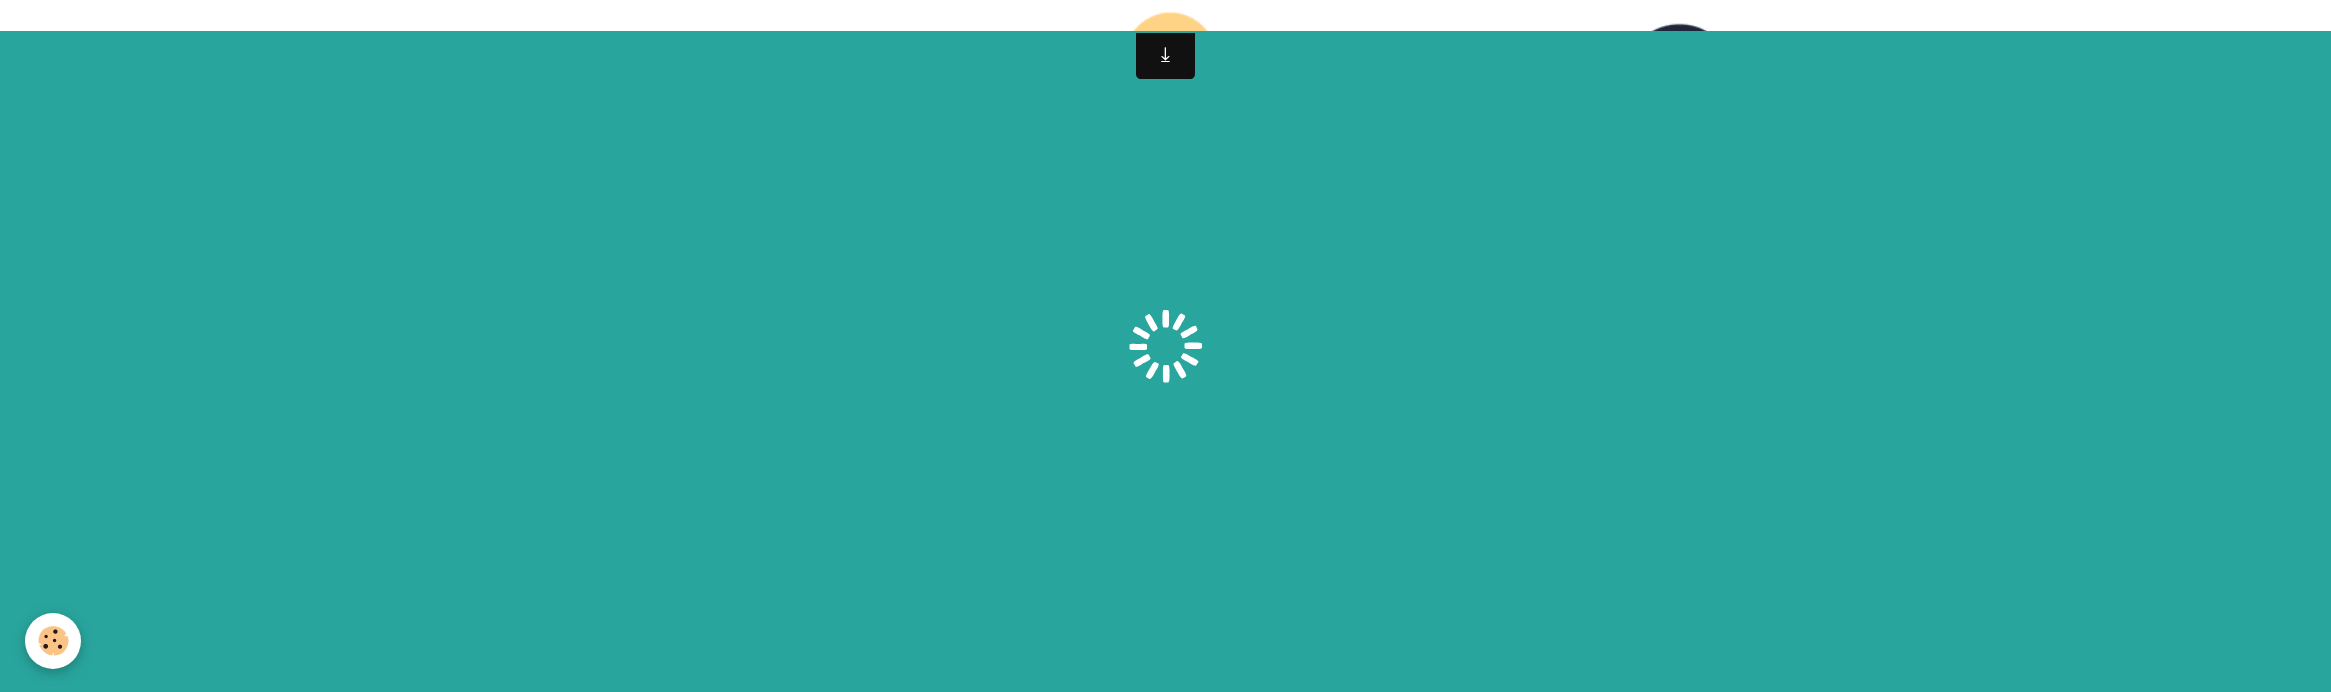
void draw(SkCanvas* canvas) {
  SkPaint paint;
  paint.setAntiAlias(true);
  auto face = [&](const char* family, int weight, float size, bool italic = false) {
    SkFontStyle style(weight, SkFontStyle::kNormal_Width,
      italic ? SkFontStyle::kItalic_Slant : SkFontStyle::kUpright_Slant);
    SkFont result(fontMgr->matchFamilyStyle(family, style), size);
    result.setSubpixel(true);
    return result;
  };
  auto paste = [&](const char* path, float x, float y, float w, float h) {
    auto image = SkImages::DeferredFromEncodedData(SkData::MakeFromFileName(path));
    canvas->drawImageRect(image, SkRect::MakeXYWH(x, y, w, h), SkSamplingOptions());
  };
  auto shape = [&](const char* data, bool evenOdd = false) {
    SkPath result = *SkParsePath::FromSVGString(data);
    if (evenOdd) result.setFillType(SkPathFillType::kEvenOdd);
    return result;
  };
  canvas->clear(0xff28a59d);
  paint.setColor(0xffffffff);
  canvas->drawRect(SkRect::MakeXYWH(0, 0, 2331, 31), paint);
  paste("img/1.png", 1133, 12, 574, 19);
  paint.setColor(0xff111111);
  canvas->drawPath(shape("M1136 33H1195V74C1195 77 1193 79 1190 79H1141C1138 79 1136 77 1136 74Z"), paint);
  paint.setColor(0xffffffff);
  canvas->drawPath(shape("M1164 310H1168C1169.5 311 1169 317.5 1169 319C1169 320 1169.5 326.5 1168 327.5H1164C1162 327.5 1162.5 319.5 1162.5 319C1162.5 318 1162 310 1164 310ZM1181.5 313.5L1185 315.5C1186 317 1182 322.5 1181.5 323.5C1181 325 1178 330.5 1176.5 330.5L1173 329C1171.5 328 1176 321 1176 320.5C1176.5 320 1180 312.5 1181.5 313.5Z"), paint);
  canvas->drawPath(shape("M1196 326L1197.5 329.5C1197.5 331.5 1192 334 1190.5 334.5C1189.5 335.5 1184 339 1182.5 338L1180.5 334.5C1180 333 1187 329.5 1187.5 329.5C1188 329 1195 324.5 1196 326ZM1202 344V348C1201 349.5 1194.5 349 1193 349C1192 349 1185.5 349.5 1184.5 348V344C1184.5 342 1192.5 342.5 1193 342.5C1194 342.5 1202 342 1202 344ZM1198.5 362L1196 365.5C1194.5 366.5 1189.5 363 1188 362C1187 361.5 1181 359 1181 357L1183 353.5C1184 352 1190.5 356.5 1191.5 357C1192 357 1199 360.5 1198.5 362Z"), paint);
  canvas->drawPath(shape("M1186 376.5L1182.5 378.5C1180.5 378.5 1178 372.5 1177 371.5C1176.5 370 1173 365 1173.5 363.5L1177 361C1179 360.5 1182.5 367.5 1182.5 368C1183 368.5 1187.5 375.5 1186 376.5ZM1168 382.5H1164C1162.5 381.5 1163 375 1163 374C1163 372.5 1162.5 366 1164 365H1168C1170 365 1169.5 373 1169.5 374C1169.5 374.5 1170 382.5 1168 382.5ZM1149.5 379L1146 377C1145.5 375.5 1149 370 1149.5 369C1150.5 367.5 1153 362 1155 362L1158.5 363.5C1160 364.5 1155.5 371.5 1155 372C1155 372.5 1151 380 1149.5 379Z"), paint);
  canvas->drawPath(shape("M1135.5 366.5L1133.5 363C1133.5 361 1139.5 358.5 1140.5 358C1141.5 357 1147 353.5 1148.5 354.5L1150.5 358C1151.5 359.5 1144.5 363 1143.5 363C1143 363.5 1136.5 368 1135.5 366.5ZM1129.5 349V344.5C1130.5 343 1137 344 1138 344C1139.5 344 1146 343 1147 344.5V349C1147 350.5 1139 350 1138 350C1137.5 350 1129.5 350.5 1129.5 349ZM1133 330.5L1135 327C1136.5 326 1142 329.5 1143 330.5C1144 331 1150 333.5 1150 335.5L1148 339C1147 340.5 1140.5 336 1140 335.5C1139.5 335.5 1132 332 1133 330.5Z"), paint);
  canvas->drawPath(shape("M1145.5 316L1149 314C1150.5 314 1153.5 320 1154 321C1154.5 322.5 1158.5 327.5 1157.5 329L1154 331.5C1152.5 332 1149 325 1148.5 324.5C1148.5 324 1144 317 1145.5 316Z"), paint);
  paint.setColor(0x3d000000);
  paint.setMaskFilter(SkMaskFilter::MakeBlur(kNormal_SkBlurStyle, 6));
  canvas->drawRoundRect(SkRect::MakeXYWH(25, 616, 56, 57), 28, 28, paint);
  paint.setMaskFilter(nullptr);
  paint.setColor(0xffffffff);
  canvas->drawCircle(53, 641, 28, paint);
  paste("img/2.png", 38, 626, 31, 30);
  auto f0 = face("FreeSerif", 400, 20);
  canvas->drawString("⤓", 1161, 61, f0, paint);
}
